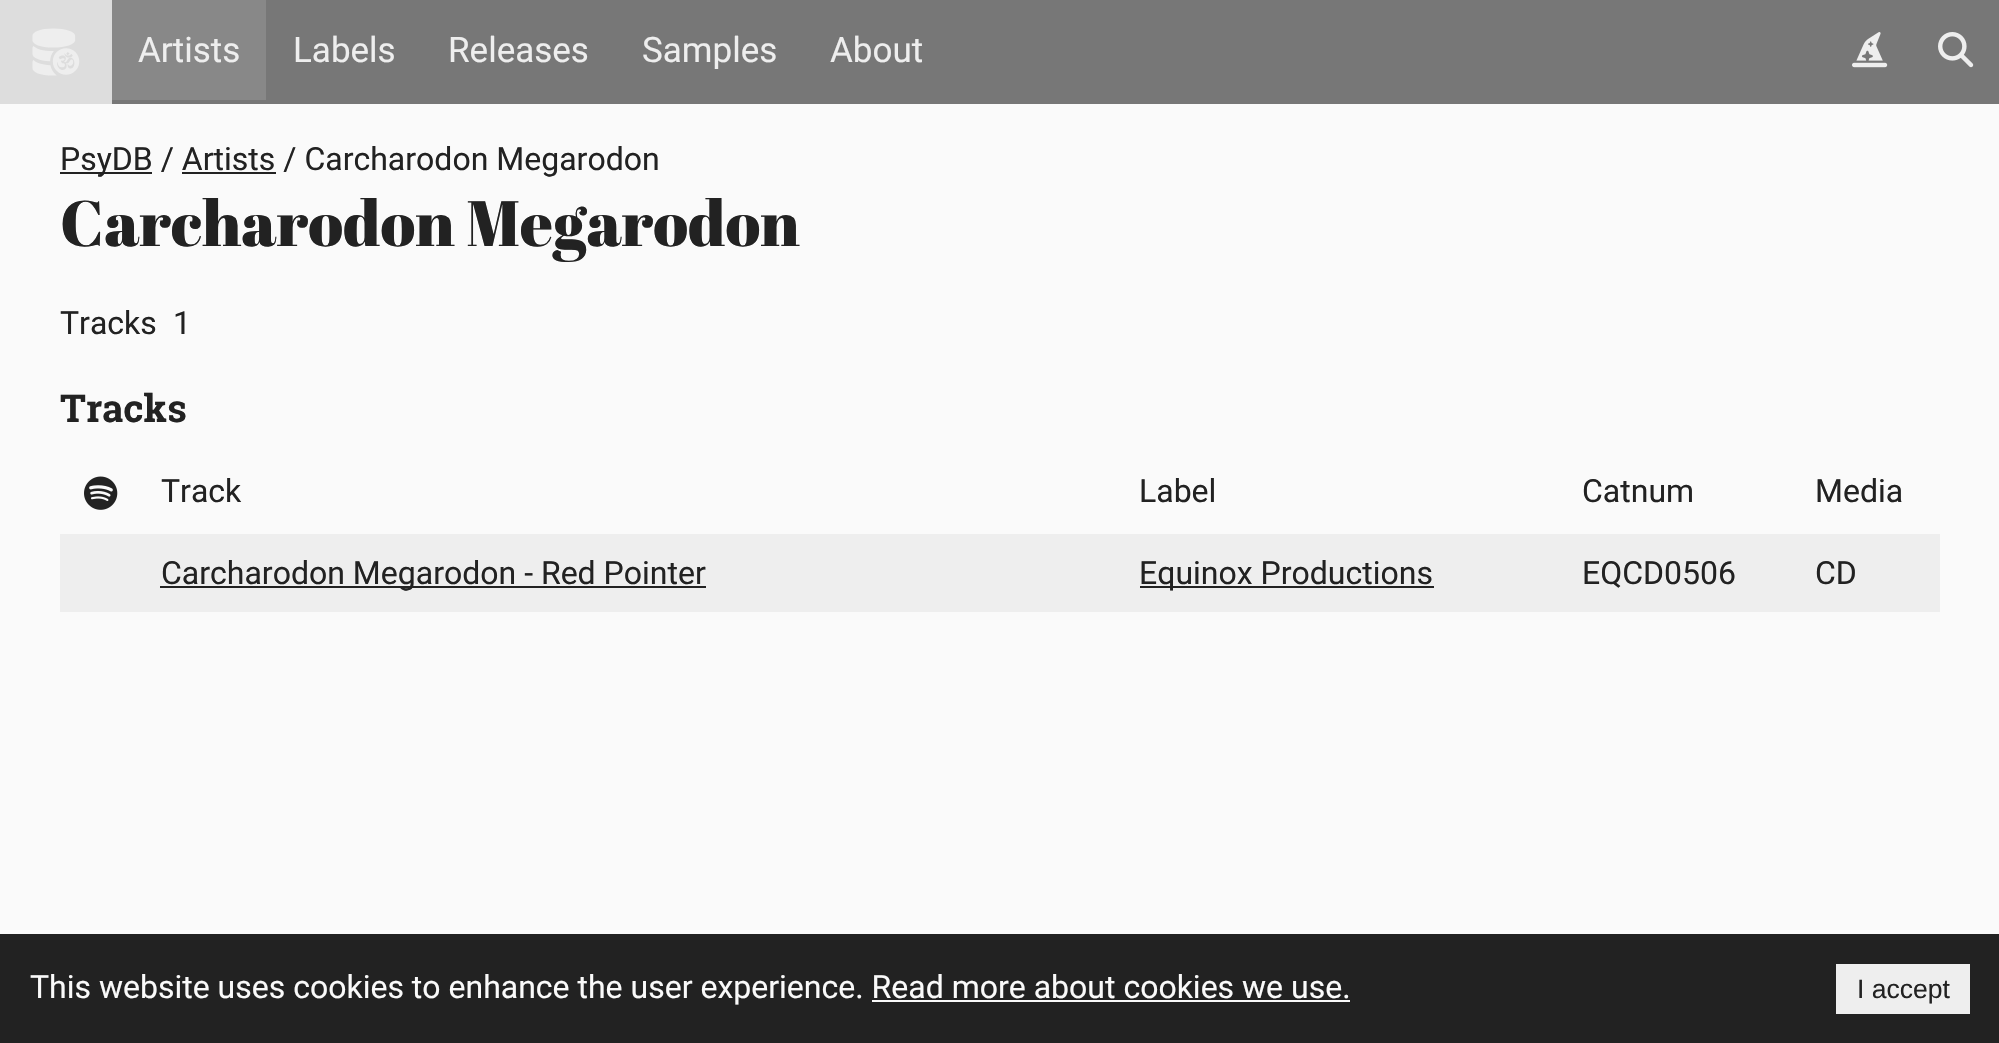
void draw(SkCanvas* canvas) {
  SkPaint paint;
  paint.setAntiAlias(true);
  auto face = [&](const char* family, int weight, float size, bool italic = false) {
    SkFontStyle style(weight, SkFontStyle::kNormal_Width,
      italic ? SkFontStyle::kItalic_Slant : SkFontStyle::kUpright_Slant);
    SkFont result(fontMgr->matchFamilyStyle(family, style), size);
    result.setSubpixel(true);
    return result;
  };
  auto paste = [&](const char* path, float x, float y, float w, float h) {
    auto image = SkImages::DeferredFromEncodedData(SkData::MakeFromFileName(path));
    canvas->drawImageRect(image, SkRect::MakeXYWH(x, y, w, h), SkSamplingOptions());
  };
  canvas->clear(0xfffafafa);
  paint.setColor(0xff777777);
  canvas->drawRect(SkRect::MakeXYWH(112, 0, 1887, 104), paint);
  paint.setColor(0xffdddddd);
  canvas->drawRect(SkRect::MakeXYWH(0, 0, 112, 104), paint);
  paste("img/1.png", 32, 28, 48, 48);
  paint.setColor(0xff888888);
  canvas->drawRect(SkRect::MakeXYWH(112, 0, 154, 100), paint);
  paste("img/2.png", 1852, 32, 36, 36);
  paste("img/3.png", 1938, 32, 36, 36);
  paint.setColor(0xff222222);
  canvas->drawRect(SkRect::MakeXYWH(60, 172, 92, 2), paint);
  canvas->drawRect(SkRect::MakeXYWH(182, 172, 94, 2), paint);
  paste("img/4.png", 84, 476, 34, 34);
  {
    const struct { float x, y, w, h; SkColor color; } items[] = {
      {60, 534, 1880, 78, 0xffeeeeee},
      {160, 586, 546, 2, 0xff222222},
      {1140, 586, 294, 2, 0xff222222},
      {0, 934, 1999, 109, 0xff222222},
      {872, 1000, 478, 2, 0xfffafafa},
      {1836, 964, 134, 50, 0xffeeeeee},
    };
    for (auto [x, y, w, h, color] : items) {
      paint.setColor(color);
      canvas->drawRect(SkRect::MakeXYWH(x, y, w, h), paint);
    }
  }
  auto f0 = face("Roboto", 400, 35);
  {
    const struct { const char* s; float x, y; } items[] = {
      {"Artists", 138, 62},
      {"Labels", 293, 62},
      {"Releases", 448, 62},
      {"Samples", 642, 62},
      {"About", 830, 62},
    };
    for (auto [s, x, y] : items) {
      canvas->drawString(s, x, y, f0, paint);
    }
  }
  auto f1 = face("Roboto", 400, 32);
  paint.setColor(0xff222222);
  canvas->drawString("PsyDB / Artists / Carcharodon Megarodon", 60, 170, f1, paint);
  auto f2 = face("Abril Fatface", 400, 64);
  canvas->drawString("Carcharodon Megarodon", 60, 246, f2, paint);
  canvas->drawString("Tracks", 60, 334, f1, paint);
  canvas->drawString("1", 173, 334, f1, paint);
  auto f3 = face("Roboto Slab", 700, 38.5f);
  canvas->drawString("Tracks", 60, 422, f3, paint);
  {
    const struct { const char* s; float x, y; } items[] = {
      {"Track", 161, 502},
      {"Label", 1139, 502},
      {"Catnum", 1582, 502},
      {"Media", 1815, 502},
      {"Carcharodon Megarodon - Red Pointer", 161, 584},
      {"Equinox Productions", 1139, 584},
      {"EQCD0506", 1582, 584},
      {"CD", 1815, 584},
    };
    for (auto [s, x, y] : items) {
      canvas->drawString(s, x, y, f1, paint);
    }
  }
  paint.setColor(0xfffafafa);
  canvas->drawString("This website uses cookies to enhance the user experience. Read more about cookies we use.", 30, 998, f1, paint);
  auto f4 = face("Liberation Sans", 400, 26.5f);
  paint.setColor(0xff222222);
  canvas->drawString("I accept", 1857, 998, f4, paint);
}
